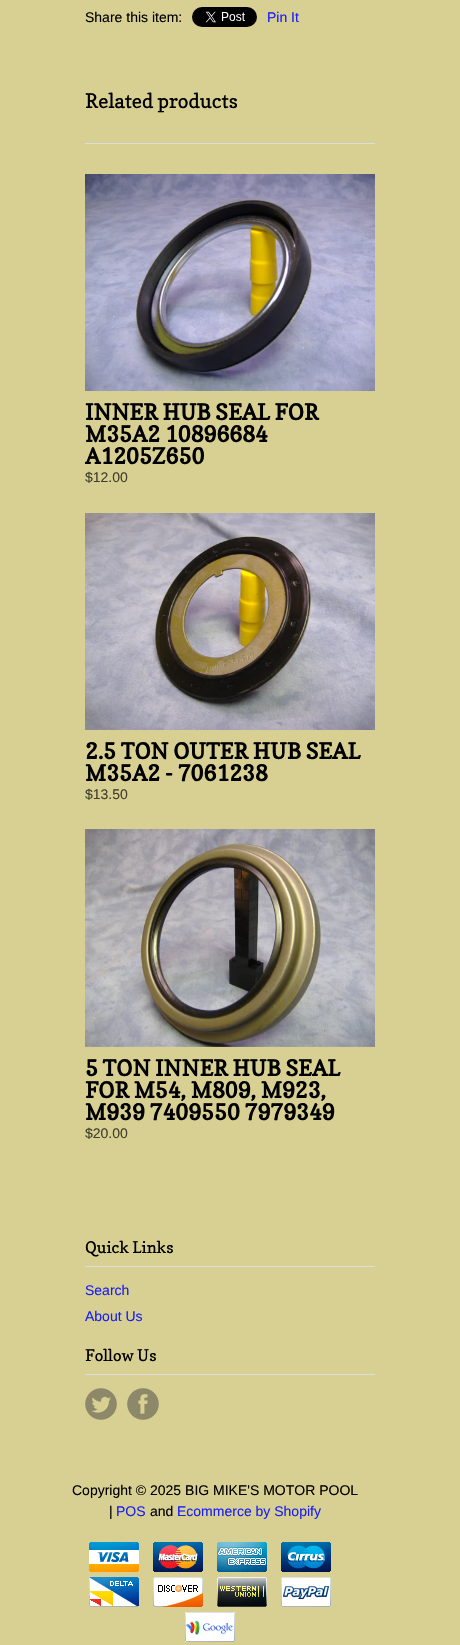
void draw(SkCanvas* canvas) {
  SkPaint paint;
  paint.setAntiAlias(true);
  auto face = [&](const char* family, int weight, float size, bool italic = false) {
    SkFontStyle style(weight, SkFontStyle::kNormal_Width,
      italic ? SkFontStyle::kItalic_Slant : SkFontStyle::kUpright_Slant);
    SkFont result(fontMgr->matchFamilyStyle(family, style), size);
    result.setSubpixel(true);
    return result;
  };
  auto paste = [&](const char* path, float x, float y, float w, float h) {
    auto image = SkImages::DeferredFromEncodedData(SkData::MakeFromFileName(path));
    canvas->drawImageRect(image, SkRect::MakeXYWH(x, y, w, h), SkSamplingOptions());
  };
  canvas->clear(0xffd8cf92);
  paste("img/1.png", 192, 7, 65, 20);
  paint.setColor(0xffdddddd);
  canvas->drawRect(SkRect::MakeXYWH(85, 143, 290, 1), paint);
  paste("img/2.png", 85, 174, 290, 217);
  paste("img/3.png", 85, 513, 290, 217);
  paste("img/4.png", 85, 829, 290, 218);
  canvas->drawRect(SkRect::MakeXYWH(85, 1266, 290, 1), paint);
  canvas->drawRect(SkRect::MakeXYWH(85, 1374, 290, 1), paint);
  paste("img/5.png", 85, 1388, 32, 32);
  paste("img/6.png", 127, 1388, 32, 32);
  paste("img/7.png", 89, 1542, 50, 30);
  paste("img/8.png", 153, 1542, 50, 30);
  paste("img/9.png", 217, 1542, 50, 30);
  paste("img/10.png", 281, 1542, 50, 30);
  paste("img/11.png", 89, 1577, 50, 30);
  paste("img/12.png", 153, 1577, 50, 30);
  paste("img/13.png", 217, 1577, 50, 30);
  paste("img/14.png", 281, 1577, 50, 30);
  paste("img/15.png", 185, 1612, 50, 30);
  auto f0 = face("Liberation Sans", 400, 14);
  paint.setColor(0xff000000);
  canvas->drawString("Share this item:", 85, 22, f0, paint);
  paint.setColor(0xff1a20f4);
  canvas->drawString("Pin It", 267, 22, f0, paint);
  auto f1 = face("Copse", 400, 20);
  paint.setColor(0xff000000);
  canvas->drawString("Related products", 85, 108, f1, paint);
  auto f2 = face("Copse", 700, 22);
  {
    const struct { const char* s; float x, y; } items[] = {
      {"INNER HUB SEAL FOR", 85, 420},
      {"M35A2 10896684", 85, 442},
      {"A1205Z650", 85, 464},
    };
    for (auto [s, x, y] : items) {
      canvas->drawString(s, x, y, f2, paint);
    }
  }
  paint.setColor(0xff413e2c);
  canvas->drawString("$12.00", 85, 482, f0, paint);
  paint.setColor(0xff000000);
  canvas->drawString("2.5 TON OUTER HUB SEAL", 85, 759, f2, paint);
  canvas->drawString("M35A2 - 7061238", 85, 781, f2, paint);
  paint.setColor(0xff413e2c);
  canvas->drawString("$13.50", 85, 799, f0, paint);
  paint.setColor(0xff000000);
  {
    const struct { const char* s; float x, y; } items[] = {
      {"5 TON INNER HUB SEAL", 85, 1076},
      {"FOR M54, M809, M923,", 85, 1098},
      {"M939 7409550 7979349", 85, 1120},
    };
    for (auto [s, x, y] : items) {
      canvas->drawString(s, x, y, f2, paint);
    }
  }
  paint.setColor(0xff413e2c);
  canvas->drawString("$20.00", 85, 1138, f0, paint);
  auto f3 = face("Copse", 400, 16);
  paint.setColor(0xff000000);
  canvas->drawString("Quick Links", 85, 1253, f3, paint);
  paint.setColor(0xff1a20f4);
  canvas->drawString("Search", 85, 1295, f0, paint);
  canvas->drawString("About Us", 85, 1321, f0, paint);
  paint.setColor(0xff000000);
  canvas->drawString("Follow Us", 85, 1361, f3, paint);
  canvas->drawString("Copyright © 2025 BIG MIKE'S MOTOR POOL", 72, 1495, f0, paint);
  canvas->drawString("|", 109, 1516, f0, paint);
  paint.setColor(0xff1a20f4);
  canvas->drawString("POS", 116, 1516, f0, paint);
  paint.setColor(0xff000000);
  canvas->drawString("and", 150, 1516, f0, paint);
  paint.setColor(0xff1a20f4);
  canvas->drawString("Ecommerce by Shopify", 177, 1516, f0, paint);
}
